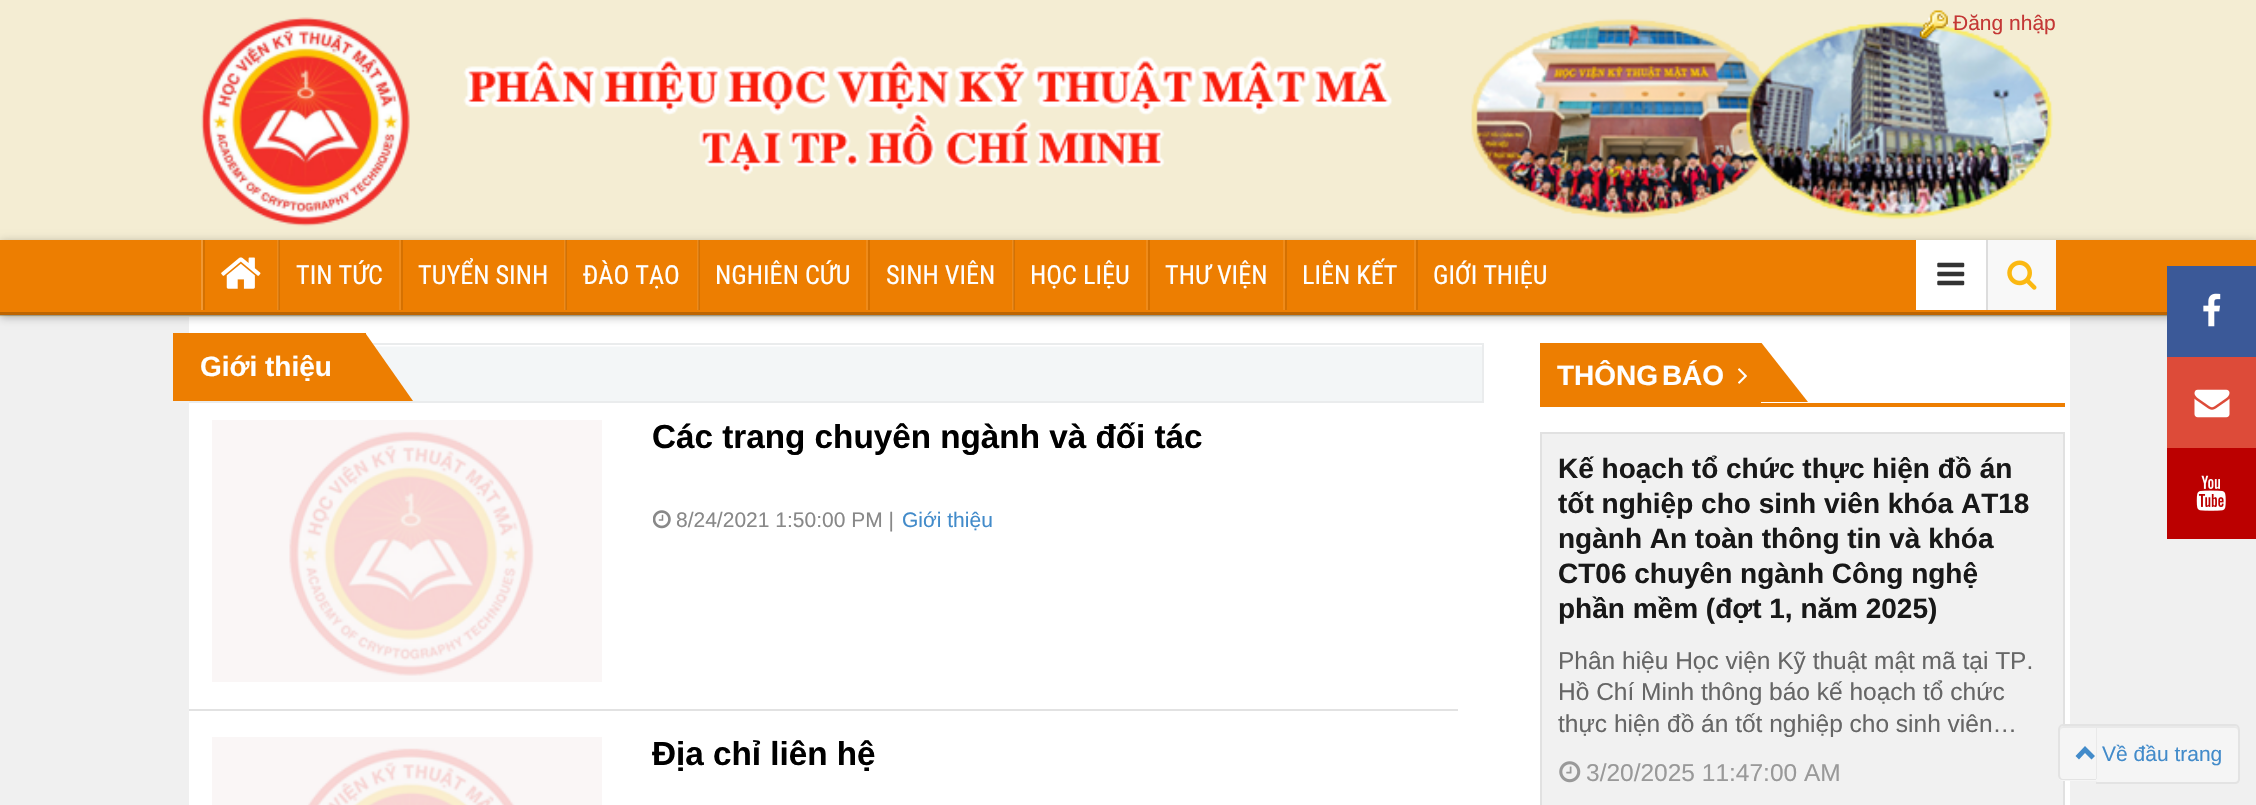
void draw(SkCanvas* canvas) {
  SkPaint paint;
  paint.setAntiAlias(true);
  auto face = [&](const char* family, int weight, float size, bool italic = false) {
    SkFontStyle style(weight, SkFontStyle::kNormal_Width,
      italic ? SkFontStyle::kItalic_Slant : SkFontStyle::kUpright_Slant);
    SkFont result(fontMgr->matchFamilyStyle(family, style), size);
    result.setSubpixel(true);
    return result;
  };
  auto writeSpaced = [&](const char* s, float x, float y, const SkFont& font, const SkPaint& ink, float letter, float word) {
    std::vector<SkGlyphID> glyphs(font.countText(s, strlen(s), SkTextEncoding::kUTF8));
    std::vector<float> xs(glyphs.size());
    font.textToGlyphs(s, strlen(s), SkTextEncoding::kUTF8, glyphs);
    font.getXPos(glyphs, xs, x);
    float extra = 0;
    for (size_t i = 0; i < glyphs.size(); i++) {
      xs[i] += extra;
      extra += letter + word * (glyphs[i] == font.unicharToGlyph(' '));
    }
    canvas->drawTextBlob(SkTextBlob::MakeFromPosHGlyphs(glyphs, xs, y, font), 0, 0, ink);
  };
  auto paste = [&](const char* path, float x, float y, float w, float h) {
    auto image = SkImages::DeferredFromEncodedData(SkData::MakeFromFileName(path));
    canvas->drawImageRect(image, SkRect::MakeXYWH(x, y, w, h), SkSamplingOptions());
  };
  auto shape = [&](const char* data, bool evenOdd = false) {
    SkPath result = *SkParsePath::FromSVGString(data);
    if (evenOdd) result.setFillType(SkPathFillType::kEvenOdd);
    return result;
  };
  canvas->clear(0xfff0f0f0);
  paint.setColor(0xfff4edd3);
  canvas->drawRect(SkRect::MakeXYWH(0, 0, 2256, 317), paint);
  paste("img/2.png", 201, 17, 1852, 210);
  paste("img/1.png", 1919, 10, 29, 29);
  paint.setColor(0xffffffff);
  canvas->drawRect(SkRect::MakeXYWH(189, 317, 1881, 488), paint);
  paint.setColor(0x4d000000);
  paint.setMaskFilter(SkMaskFilter::MakeBlur(kNormal_SkBlurStyle, 4.5f));
  canvas->drawRect(SkRect::MakeXYWH(0, 242, 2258, 75), paint);
  paint.setMaskFilter(nullptr);
  {
    const struct { float x, y, w, h; SkColor color; } items[] = {
      {0, 240, 2256, 75, 0xffed7e01},
      {1014, 240, 1, 70, 0xffd57101},
      {699, 240, 1, 70, 0xffd57101},
      {566, 240, 1, 70, 0xffd57101},
      {279, 240, 1, 70, 0xffd57101},
      {0, 312, 2167, 4, 0x33000000},
      {201, 240, 2, 70, 0xfff19834},
      {277, 240, 1, 70, 0xffef8b1a},
      {278, 240, 1, 70, 0xffd77d17},
      {203, 240, 2, 70, 0xffd57101},
    };
    for (auto [x, y, w, h, color] : items) {
      paint.setColor(color);
      canvas->drawRect(SkRect::MakeXYWH(x, y, w, h), paint);
    }
  }
  paste("img/3.png", 221, 257, 40, 32);
  {
    const struct { float x, y, w, h; SkColor color; } items[] = {
      {399, 240, 2, 70, 0xffef8b1a},
      {564, 240, 1, 70, 0xffef8b1a},
      {565, 240, 1, 70, 0xffd77d17},
      {401, 240, 2, 70, 0xffd57101},
      {697, 240, 1, 70, 0xffef8b1a},
      {698, 240, 1, 70, 0xffd77d17},
      {866, 240, 2, 70, 0xffef8b1a},
      {1012, 240, 1, 70, 0xffef8b1a},
      {1013, 240, 1, 70, 0xffd77d17},
      {868, 240, 2, 70, 0xffd57101},
      {1146, 240, 2, 70, 0xffef8b1a},
      {1283, 240, 2, 70, 0xffef8b1a},
      {1148, 240, 2, 70, 0xffd57101},
      {1414, 240, 2, 70, 0xffef8b1a},
      {1285, 240, 2, 70, 0xffd57101},
      {1416, 240, 2, 70, 0xffd57101},
      {1916, 240, 70, 70, 0xffffffff},
    };
    for (auto [x, y, w, h, color] : items) {
      paint.setColor(color);
      canvas->drawRect(SkRect::MakeXYWH(x, y, w, h), paint);
    }
  }
  paste("img/4.png", 1937, 262, 28, 24);
  paint.setColor(0xffdddddd);
  canvas->drawRect(SkRect::MakeXYWH(1986, 240, 2, 70), paint);
  paint.setColor(0xfff8f8f8);
  canvas->drawRect(SkRect::MakeXYWH(1988, 240, 68, 70), paint);
  paste("img/5.png", 2007, 260, 30, 30);
  paint.setColor(0xfff3f6f7);
  canvas->drawRect(SkRect::MakeXYWH(375, 347, 1107, 54), paint);
  paste("img/6.png", 373, 345, 1109, 2);
  paint.setStroke(true);
  paint.setStrokeWidth(2);
  paint.setColor(0xffeaeced);
  canvas->drawRect(SkRect::MakeXYWH(190, 344, 1293, 58), paint);
  paint.setStroke(false);
  paint.setColor(0xffed7e01);
  canvas->drawRect(SkRect::MakeXYWH(173, 333, 193, 68), paint);
  canvas->drawPath(shape("M413 401H366V334Z"), paint);
  paint.setColor(0xffe2e2e2);
  canvas->drawRect(SkRect::MakeXYWH(189, 709, 1269, 2), paint);
  paste("img/7.png", 212, 420, 390, 262);
  paste("img/8.png", 653, 510, 18, 19);
  paste("img/9.png", 212, 737, 390, 68);
  paint.setColor(0xffed7e01);
  canvas->drawRect(SkRect::MakeXYWH(1540, 403, 525, 4), paint);
  canvas->drawRect(SkRect::MakeXYWH(1540, 343, 221, 60), paint);
  paste("img/10.png", 1738, 368, 9, 16);
  canvas->save();
  canvas->clipRect(SkRect::MakeXYWH(1540, 343, 525, 60));
  canvas->drawPath(shape("M1808 402H1760V341Z"), paint);
  canvas->restore();
  paint.setColor(0xfff1f1f1);
  canvas->drawRect(SkRect::MakeXYWH(1541, 433, 523, 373), paint);
  paint.setStroke(true);
  paint.setColor(0xffe1e1e1);
  canvas->drawRect(SkRect::MakeXYWH(1541, 433, 523, 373), paint);
  paste("img/11.png", 1559, 761, 22, 22);
  paint.setStroke(false);
  paint.setColor(0xff3b5998);
  canvas->drawRect(SkRect::MakeXYWH(2167, 266, 89, 91), paint);
  paste("img/12.png", 2203, 293, 18, 34);
  paint.setColor(0xffdd4b39);
  canvas->drawRect(SkRect::MakeXYWH(2167, 357, 89, 91), paint);
  paste("img/13.png", 2194, 389, 36, 29);
  paint.setColor(0xffbb0000);
  canvas->drawRect(SkRect::MakeXYWH(2167, 448, 89, 91), paint);
  paste("img/14.png", 2196, 475, 30, 36);
  paint.setColor(0xfff5f5f5);
  canvas->drawPath(shape("M2063 725H2097V781H2063C2060 781 2058 779 2058 776V730C2058 727 2060 725 2063 725Z"), paint);
  paint.setColor(0xffe9e9e9);
  canvas->drawPath(shape("M2063 728H2096V779H2097V726H2075C2068 726 2060 723 2060 732C2060 730 2061 728 2063 728Z"), paint);
  paint.setColor(0xffe3e3e3);
  canvas->drawPath(shape("M2063 724H2096V780H2063C2060 780 2058 778 2058 775V730C2058 727 2060 724 2063 724ZM2063 726H2096V779H2063C2061 779 2060 777 2060 775V730C2060 728 2061 726 2063 726Z", true), paint);
  paint.setColor(0xfff5f5f5);
  canvas->drawPath(shape("M2097 725H2235C2238 725 2240 727 2240 730V779C2240 782 2238 784 2235 784H2097Z"), paint);
  paint.setColor(0xffe9e9e9);
  canvas->drawPath(shape("M2097 726V728H2235C2237 728 2238 730 2238 732C2238 729 2238 726 2234 726Z"), paint);
  paint.setColor(0xffe3e3e3);
  canvas->drawPath(shape("M2096 724H2235C2238 724 2240 727 2240 730V779C2240 782 2238 784 2235 784H2096ZM2096 726H2235C2237 726 2238 728 2238 730V779C2238 781 2237 782 2235 782H2096Z", true), paint);
  paint.setColor(0xff428bca);
  canvas->drawPath(shape("M2095 756L2091.5 759.5L2085 753L2079 759.5L2075.5 756L2085 746Z"), paint);
  auto f0 = face("Liberation Sans", 400, 21);
  paint.setColor(0xffc43735);
  canvas->drawString("Đăng nhập", 1953, 30, f0, paint);
  auto f1 = face("Roboto Condensed", 400, 26.25f);
  paint.setColor(0xffffffff);
  {
    const struct { const char* s; float x, y; } items[] = {
      {"TIN TỨC", 296, 284},
      {"TUYỂN SINH", 418, 284},
      {"ĐÀO TẠO", 583, 284},
      {"NGHIÊN CỨU", 715, 284},
      {"SINH VIÊN", 886, 284},
      {"HỌC LIỆU", 1030, 284},
      {"THƯ VIỆN", 1165, 284},
      {"LIÊN KẾT", 1302, 284},
      {"GIỚI THIỆU", 1433, 284},
    };
    for (auto [s, x, y] : items) {
      canvas->drawString(s, x, y, f1, paint);
    }
  }
  auto f2 = face("Liberation Sans", 700, 28);
  canvas->drawString("Giới thiệu", 200, 376, f2, paint);
  auto f3 = face("Liberation Sans", 700, 33.25f);
  paint.setColor(0xff000000);
  canvas->drawString("Các trang chuyên ngành và đối tác", 652, 448, f3, paint);
  paint.setColor(0xff888888);
  canvas->drawString("8/24/2021 1:50:00 PM |", 676, 527, f0, paint);
  paint.setColor(0xff428bca);
  canvas->drawString("Giới thiệu", 902, 527, f0, paint);
  paint.setColor(0xff000000);
  canvas->drawString("Địa chỉ liên hệ", 652, 765, f3, paint);
  auto f4 = face("Arimo", 700, 28);
  paint.setColor(0xffffffff);
  writeSpaced("THÔNG BÁO", 1557, 385, f4, paint, 0, -4);
  paint.setColor(0xff181818);
  {
    const struct { const char* s; float x, y; } items[] = {
      {"Kế hoạch tổ chức thực hiện đồ án", 1558, 478},
      {"tốt nghiệp cho sinh viên khóa AT18", 1558, 513},
      {"ngành An toàn thông tin và khóa", 1558, 548},
      {"CT06 chuyên ngành Công nghệ", 1558, 583},
      {"phần mềm (đợt 1, năm 2025)", 1558, 618},
    };
    for (auto [s, x, y] : items) {
      canvas->drawString(s, x, y, f4, paint);
    }
  }
  auto f5 = face("Liberation Sans", 400, 24.5f);
  paint.setColor(0xff666666);
  {
    const struct { const char* s; float x, y; } items[] = {
      {"Phân hiệu Học viện Kỹ thuật mật mã tại TP.", 1558, 669},
      {"Hồ Chí Minh thông báo kế hoạch tổ chức", 1558, 700},
      {"thực hiện đồ án tốt nghiệp cho sinh viên…", 1558, 732},
    };
    for (auto [s, x, y] : items) {
      canvas->drawString(s, x, y, f5, paint);
    }
  }
  paint.setColor(0xff999999);
  canvas->drawString("3/20/2025 11:47:00 AM", 1586, 781, f5, paint);
  paint.setColor(0xff428bca);
  canvas->drawString("Về đầu trang", 2102, 761, f0, paint);
}
